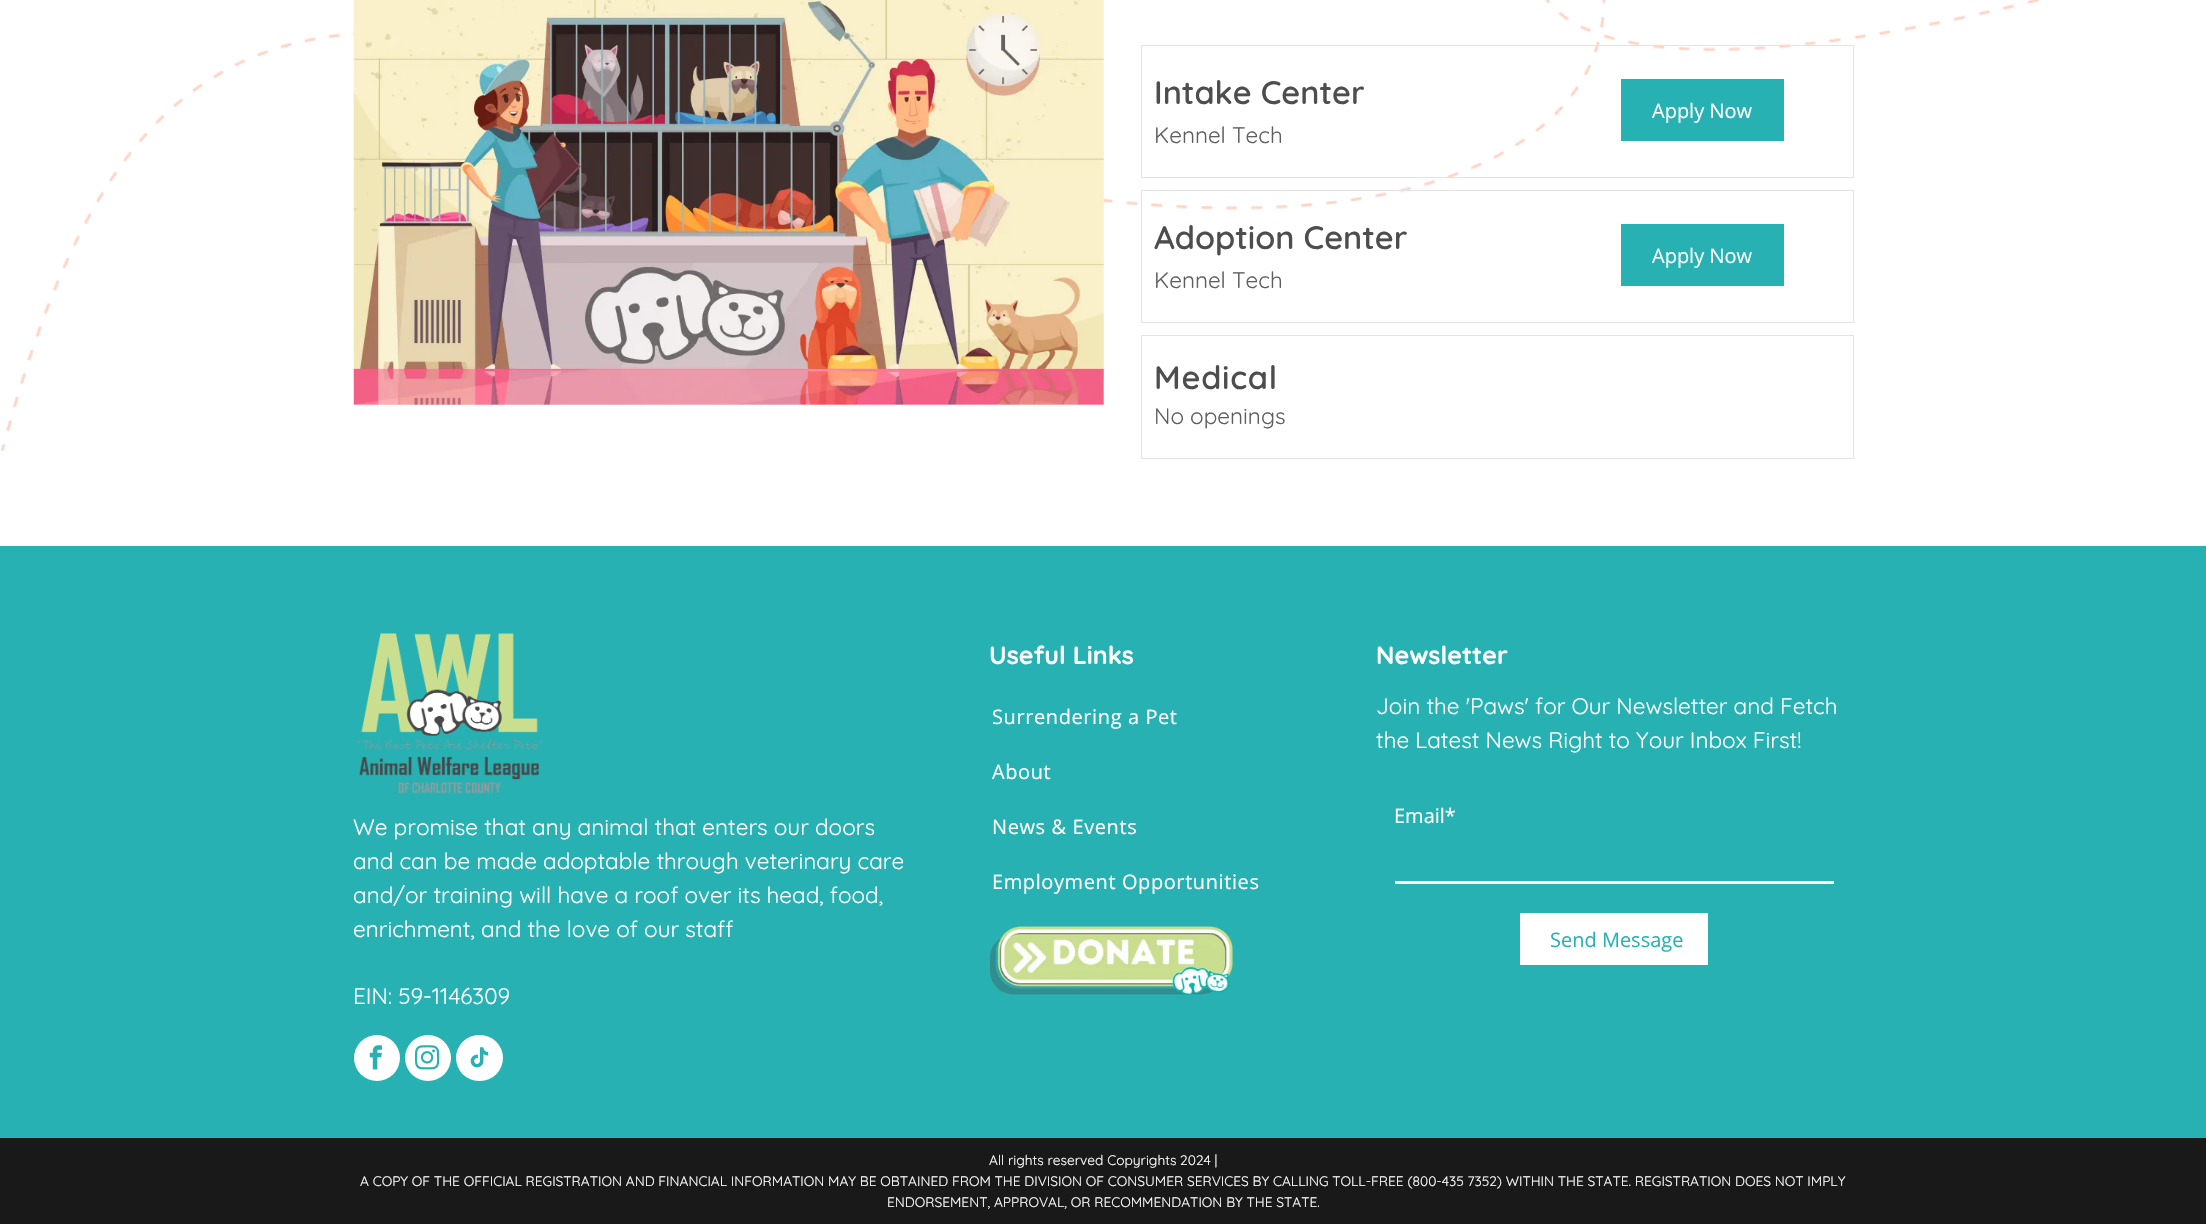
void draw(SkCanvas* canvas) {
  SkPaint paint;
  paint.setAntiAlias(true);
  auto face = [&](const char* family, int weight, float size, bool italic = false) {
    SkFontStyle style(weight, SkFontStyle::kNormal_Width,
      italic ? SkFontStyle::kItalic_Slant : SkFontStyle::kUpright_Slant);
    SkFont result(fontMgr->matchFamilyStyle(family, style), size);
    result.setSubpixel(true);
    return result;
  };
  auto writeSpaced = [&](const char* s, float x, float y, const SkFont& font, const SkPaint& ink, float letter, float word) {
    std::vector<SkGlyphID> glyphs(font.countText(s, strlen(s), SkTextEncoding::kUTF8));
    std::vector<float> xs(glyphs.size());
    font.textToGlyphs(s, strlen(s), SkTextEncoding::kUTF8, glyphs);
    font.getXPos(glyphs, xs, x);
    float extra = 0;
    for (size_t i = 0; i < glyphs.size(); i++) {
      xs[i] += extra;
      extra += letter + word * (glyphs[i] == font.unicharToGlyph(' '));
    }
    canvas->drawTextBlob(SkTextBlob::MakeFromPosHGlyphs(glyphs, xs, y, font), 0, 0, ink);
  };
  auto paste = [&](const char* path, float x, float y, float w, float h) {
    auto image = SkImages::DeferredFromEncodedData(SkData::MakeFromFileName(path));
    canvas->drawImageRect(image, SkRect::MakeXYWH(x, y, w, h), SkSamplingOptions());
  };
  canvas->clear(0xffffffff);
  paste("img/1.png", 0, 0, 2040, 451);
  paste("img/2.png", 353, 0, 751, 405);
  paint.setStroke(true);
  paint.setStrokeWidth(1);
  paint.setColor(0xffe3e3e3);
  canvas->drawRect(SkRect::MakeXYWH(1141.5f, 45.5f, 712, 132), paint);
  paint.setStroke(false);
  paint.setColor(0xff27b1b2);
  canvas->drawRect(SkRect::MakeXYWH(1621, 79, 163, 62), paint);
  paint.setStroke(true);
  paint.setColor(0xffe3e3e3);
  canvas->drawRect(SkRect::MakeXYWH(1141.5f, 190.5f, 712, 132), paint);
  paint.setStroke(false);
  paint.setColor(0xff27b1b2);
  canvas->drawRect(SkRect::MakeXYWH(1621, 224, 163, 62), paint);
  paint.setStroke(true);
  paint.setColor(0xffe3e3e3);
  canvas->drawRect(SkRect::MakeXYWH(1141.5f, 335.5f, 712, 123), paint);
  paint.setStroke(false);
  paint.setColor(0xff28b1b2);
  canvas->drawRect(SkRect::MakeXYWH(0, 546, 2206, 592), paint);
  paste("img/3.png", 357, 633, 186, 161);
  paint.setColor(0xffffffff);
  canvas->drawCircle(377, 1058, 23, paint);
  paste("img/4.png", 369, 1045, 13, 25);
  canvas->drawCircle(428, 1058, 23, paint);
  paste("img/5.png", 415, 1045, 25, 25);
  canvas->drawRoundRect(SkRect::MakeXYWH(456, 1035, 47, 46), 23, 23, paint);
  paste("img/6.png", 470, 1047, 19, 21);
  paste("img/7.png", 990, 926, 243, 69);
  {
    const struct { float x, y, w, h; SkColor color; } items[] = {
      {1395, 881, 439, 3, 0xffffffff},
      {1520, 913, 188, 52, 0xffffffff},
      {0, 1138, 2206, 86, 0xff19191a},
    };
    for (auto [x, y, w, h, color] : items) {
      paint.setColor(color);
      canvas->drawRect(SkRect::MakeXYWH(x, y, w, h), paint);
    }
  }
  auto f0 = face("Quicksand", 600, 32.5f);
  paint.setColor(0xff4e4d4d);
  canvas->drawString("Intake Center", 1154, 104, f0, paint);
  auto f1 = face("Quicksand", 400, 22.5f);
  paint.setColor(0xff5e5e5e);
  canvas->drawString("Kennel Tech", 1154, 143, f1, paint);
  auto f2 = face("Open Sans", 400, 20);
  paint.setColor(0xffffffff);
  canvas->drawString("Apply Now", 1652, 118, f2, paint);
  paint.setColor(0xff4e4d4d);
  canvas->drawString("Adoption Center", 1154, 249, f0, paint);
  paint.setColor(0xff5e5e5e);
  canvas->drawString("Kennel Tech", 1154, 288, f1, paint);
  paint.setColor(0xffffffff);
  canvas->drawString("Apply Now", 1652, 263, f2, paint);
  paint.setColor(0xff4e4d4d);
  writeSpaced("Medical", 1154, 389, f0, paint, 0.75f, 0);
  paint.setColor(0xff5e5e5e);
  canvas->drawString("No openings", 1154, 424, f1, paint);
  paint.setColor(0xffffffff);
  {
    const struct { const char* s; float x, y; } items[] = {
      {"We promise that any animal that enters our doors", 353, 835},
      {"and can be made adoptable through veterinary care", 353, 869},
      {"and/or training will have a roof over its head, food,", 353, 903},
      {"enrichment, and the love of our staff", 353, 937},
      {"EIN: 59-1146309", 353, 1004},
    };
    for (auto [s, x, y] : items) {
      canvas->drawString(s, x, y, f1, paint);
    }
  }
  auto f3 = face("Quicksand", 700, 25);
  canvas->drawString("Useful Links", 989, 664, f3, paint);
  {
    const struct { const char* s; float x, y; } items[] = {
      {"Surrendering a Pet", 992, 724},
      {"About", 992, 779},
      {"News & Events", 992, 834},
      {"Employment Opportunities", 992, 889},
    };
    for (auto [s, x, y] : items) {
      writeSpaced(s, x, y, f2, paint, 0.6f, 0);
    }
  }
  canvas->drawString("Newsletter", 1376, 664, f3, paint);
  canvas->drawString("Join the 'Paws' for Our Newsletter and Fetch", 1376, 714, f1, paint);
  canvas->drawString("the Latest News Right to Your Inbox First!", 1376, 748, f1, paint);
  canvas->drawString("Email*", 1394, 823, f2, paint);
  paint.setColor(0xff27b1b2);
  canvas->drawString("Send Message", 1550, 947, f2, paint);
  auto f4 = face("Quicksand", 400, 13.75f);
  paint.setColor(0xffffffff);
  {
    const struct { const char* s; float x, y; } items[] = {
      {"All rights reserved Copyrights 2024 |", 989, 1165},
      {"A COPY OF THE OFFICIAL REGISTRATION AND FINANCIAL INFORMATION MAY BE OBTAINED FROM THE DIVISION OF CONSUMER SERVICES BY CALLING TOLL-FREE (800-435 7352) WITHIN THE STATE. REGISTRATION DOES NOT IMPLY", 360, 1186},
      {"ENDORSEMENT, APPROVAL, OR RECOMMENDATION BY THE STATE.", 887, 1207},
    };
    for (auto [s, x, y] : items) {
      canvas->drawString(s, x, y, f4, paint);
    }
  }
}
